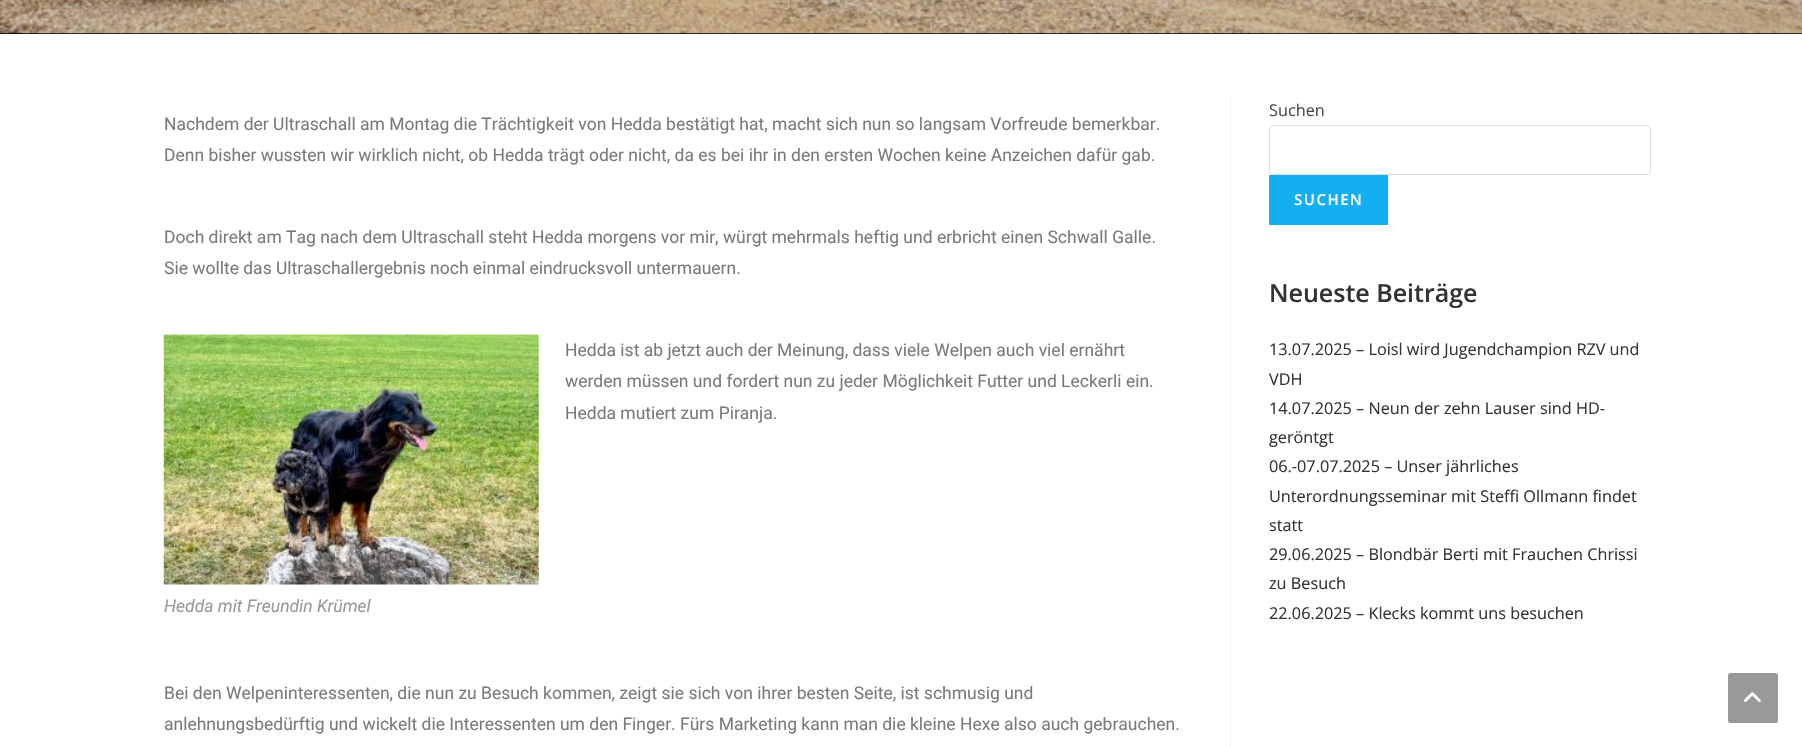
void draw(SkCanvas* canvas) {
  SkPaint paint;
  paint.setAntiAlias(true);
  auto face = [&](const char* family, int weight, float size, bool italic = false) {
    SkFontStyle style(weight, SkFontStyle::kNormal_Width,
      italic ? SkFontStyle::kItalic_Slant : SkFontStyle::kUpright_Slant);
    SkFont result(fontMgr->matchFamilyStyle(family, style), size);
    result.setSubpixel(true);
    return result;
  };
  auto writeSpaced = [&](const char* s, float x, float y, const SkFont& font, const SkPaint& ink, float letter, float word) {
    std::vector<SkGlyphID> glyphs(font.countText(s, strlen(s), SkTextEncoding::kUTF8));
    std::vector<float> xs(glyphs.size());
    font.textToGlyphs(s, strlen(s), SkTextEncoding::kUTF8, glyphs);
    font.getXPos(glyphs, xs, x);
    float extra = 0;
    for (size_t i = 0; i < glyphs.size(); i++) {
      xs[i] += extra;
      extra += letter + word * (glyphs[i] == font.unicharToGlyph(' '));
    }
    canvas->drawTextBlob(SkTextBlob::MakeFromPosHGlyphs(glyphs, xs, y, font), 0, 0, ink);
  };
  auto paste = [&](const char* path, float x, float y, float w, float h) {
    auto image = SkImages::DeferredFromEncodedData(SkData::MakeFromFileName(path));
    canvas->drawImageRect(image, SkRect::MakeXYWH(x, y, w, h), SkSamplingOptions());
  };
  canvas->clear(0xffffffff);
  paint.setColor(0xff000000);
  canvas->drawRect(SkRect::MakeXYWH(0, 33, 1802, 1), paint);
  paste("img/1.png", 0, 0, 1802, 34);
  paint.setColor(0xfff1f1f1);
  canvas->drawRect(SkRect::MakeXYWH(1230, 96, 1, 651), paint);
  paste("img/2.png", 163, 334, 376, 251);
  paint.setStroke(true);
  paint.setStrokeWidth(1);
  paint.setColor(0xffdddddd);
  canvas->drawRoundRect(SkRect::MakeXYWH(1269.5f, 125.5f, 381, 49), 3.5f, 3.5f, paint);
  paint.setStroke(false);
  paint.setColor(0xff13aff0);
  canvas->drawRect(SkRect::MakeXYWH(1269, 175, 119, 50), paint);
  paint.setColor(0xff999999);
  canvas->drawRoundRect(SkRect::MakeXYWH(1728, 673, 50, 50), 2.5f, 2.5f, paint);
  paste("img/3.png", 1743, 692, 18, 10);
  auto f0 = face("Roboto", 400, 17.5f);
  paint.setColor(0xff7a7a7a);
  {
    const struct { const char* s; float x, y; } items[] = {
      {"Nachdem der Ultraschall am Montag die Trächtigkeit von Hedda bestätigt hat, macht sich nun so langsam Vorfreude bemerkbar.", 164, 130},
      {"Denn bisher wussten wir wirklich nicht, ob Hedda trägt oder nicht, da es bei ihr in den ersten Wochen keine Anzeichen dafür gab.", 164, 161},
      {"Doch direkt am Tag nach dem Ultraschall steht Hedda morgens vor mir, würgt mehrmals heftig und erbricht einen Schwall Galle.", 164, 243},
      {"Sie wollte das Ultraschallergebnis noch einmal eindrucksvoll untermauern.", 164, 274},
      {"Hedda ist ab jetzt auch der Meinung, dass viele Welpen auch viel ernährt", 565, 356},
      {"werden müssen und fordert nun zu jeder Möglichkeit Futter und Leckerli ein.", 565, 387},
      {"Hedda mutiert zum Piranja.", 565, 419},
    };
    for (auto [s, x, y] : items) {
      canvas->drawString(s, x, y, f0, paint);
    }
  }
  auto f1 = face("Roboto", 400, 17.5f, true);
  paint.setColor(0xff999999);
  canvas->drawString("Hedda mit Freundin Krümel", 164, 612, f1, paint);
  paint.setColor(0xff7a7a7a);
  canvas->drawString("Bei den Welpeninteressenten, die nun zu Besuch kommen, zeigt sie sich von ihrer besten Seite, ist schmusig und", 164, 699, f0, paint);
  canvas->drawString("anlehnungsbedürftig und wickelt die Interessenten um den Finger. Fürs Marketing kann man die kleine Hexe also auch gebrauchen.", 164, 730, f0, paint);
  auto f2 = face("Open Sans", 400, 16.25f);
  paint.setColor(0xff4a4a4a);
  canvas->drawString("Suchen", 1269, 116, f2, paint);
  auto f3 = face("Open Sans", 600, 15);
  paint.setColor(0xffffffff);
  writeSpaced("SUCHEN", 1294, 205, f3, paint, 1.5f, 0);
  auto f4 = face("Open Sans", 600, 25);
  paint.setColor(0xff333333);
  canvas->drawString("Neueste Beiträge", 1269, 302, f4, paint);
  {
    const struct { const char* s; float x, y; } items[] = {
      {"13.07.2025 – Loisl wird Jugendchampion RZV und", 1269, 355},
      {"VDH", 1269, 385},
      {"14.07.2025 – Neun der zehn Lauser sind HD-", 1269, 414},
      {"geröntgt", 1269, 443},
      {"06.-07.07.2025 – Unser jährliches", 1269, 472},
      {"Unterordnungsseminar mit Steffi Ollmann findet", 1269, 502},
      {"statt", 1269, 531},
      {"29.06.2025 – Blondbär Berti mit Frauchen Chrissi", 1269, 560},
      {"zu Besuch", 1269, 589},
      {"22.06.2025 – Klecks kommt uns besuchen", 1269, 619},
    };
    for (auto [s, x, y] : items) {
      canvas->drawString(s, x, y, f2, paint);
    }
  }
}
